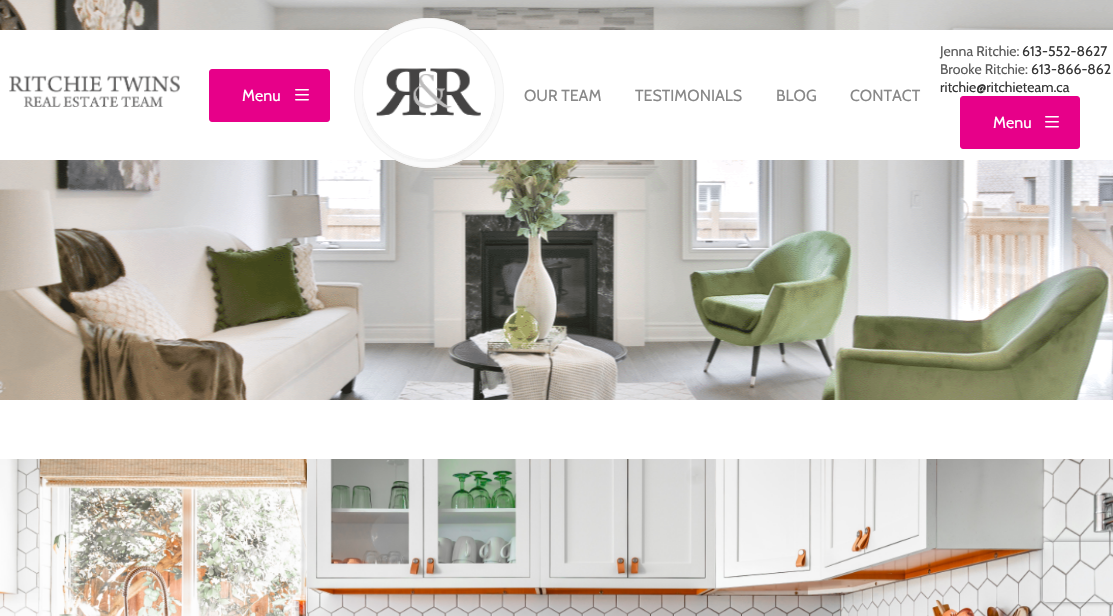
void draw(SkCanvas* canvas) {
  SkPaint paint;
  paint.setAntiAlias(true);
  auto face = [&](const char* family, int weight, float size, bool italic = false) {
    SkFontStyle style(weight, SkFontStyle::kNormal_Width,
      italic ? SkFontStyle::kItalic_Slant : SkFontStyle::kUpright_Slant);
    SkFont result(fontMgr->matchFamilyStyle(family, style), size);
    result.setSubpixel(true);
    return result;
  };
  auto paste = [&](const char* path, float x, float y, float w, float h) {
    auto image = SkImages::DeferredFromEncodedData(SkData::MakeFromFileName(path));
    canvas->drawImageRect(image, SkRect::MakeXYWH(x, y, w, h), SkSamplingOptions());
  };
  auto shape = [&](const char* data, bool evenOdd = false) {
    SkPath result = *SkParsePath::FromSVGString(data);
    if (evenOdd) result.setFillType(SkPathFillType::kEvenOdd);
    return result;
  };
  canvas->clear(0xffffffff);
  paste("img/1.png", 0, 0, 1113, 400);
  paint.setColor(0xffffffff);
  canvas->drawRect(SkRect::MakeXYWH(0, 30, 1113, 130), paint);
  paste("img/2.png", 9, 75, 171, 32);
  paint.setColor(0xffe70089);
  canvas->drawRoundRect(SkRect::MakeXYWH(209.5f, 69.5f, 120, 52), 2.5f, 2.5f, paint);
  paint.setStroke(true);
  paint.setStrokeWidth(1);
  canvas->drawRoundRect(SkRect::MakeXYWH(209.5f, 69.5f, 120, 52), 2.5f, 2.5f, paint);
  paste("img/3.png", 295, 89, 14, 12);
  paste("img/4.png", 354, 18, 150, 150);
  paint.setStroke(false);
  canvas->drawRoundRect(SkRect::MakeXYWH(960.5f, 96.5f, 119, 52), 2.5f, 2.5f, paint);
  paint.setStroke(true);
  canvas->drawRoundRect(SkRect::MakeXYWH(960.5f, 96.5f, 119, 52), 2.5f, 2.5f, paint);
  paste("img/3.png", 1045, 116, 14, 12);
  paste("img/5.png", 0, 459, 1113, 157);
  canvas->save();
  canvas->clipPath(shape("M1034 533H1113V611H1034ZM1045 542H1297C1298 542 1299 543 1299 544V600C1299 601 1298 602 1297 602H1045C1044 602 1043 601 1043 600V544C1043 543 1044 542 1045 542Z", true), true);
  paint.setStroke(false);
  paint.setColor(0xff808080);
  paint.setMaskFilter(SkMaskFilter::MakeBlur(kNormal_SkBlurStyle, 2.5f));
  canvas->drawRoundRect(SkRect::MakeXYWH(1043, 542, 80, 60), 2, 2, paint);
  paint.setMaskFilter(nullptr);
  canvas->restore();
  auto f0 = face("Cabin", 400, 16);
  paint.setColor(0xffffffff);
  canvas->drawString("Menu", 242, 101, f0, paint);
  paint.setColor(0xff888888);
  {
    const struct { const char* s; float x, y; } items[] = {
      {"OUR TEAM", 524, 101},
      {"TESTIMONIALS", 635, 101},
      {"BLOG", 776, 101},
      {"CONTACT", 850, 101},
    };
    for (auto [s, x, y] : items) {
      canvas->drawString(s, x, y, f0, paint);
    }
  }
  auto f1 = face("Cabin", 400, 14);
  paint.setColor(0xff5c5c5c);
  canvas->drawString("Jenna Ritchie:", 940, 56, f1, paint);
  paint.setColor(0xff353535);
  canvas->drawString("613-552-8627", 1022, 56, f1, paint);
  paint.setColor(0xff5c5c5c);
  canvas->drawString("Brooke Ritchie:", 940, 74, f1, paint);
  paint.setColor(0xff353535);
  canvas->drawString("613-866-862", 1031, 74, f1, paint);
  canvas->drawString("ritchie@ritchieteam.ca", 940, 92, f1, paint);
  paint.setColor(0xffffffff);
  canvas->drawString("Menu", 993, 128, f0, paint);
}
